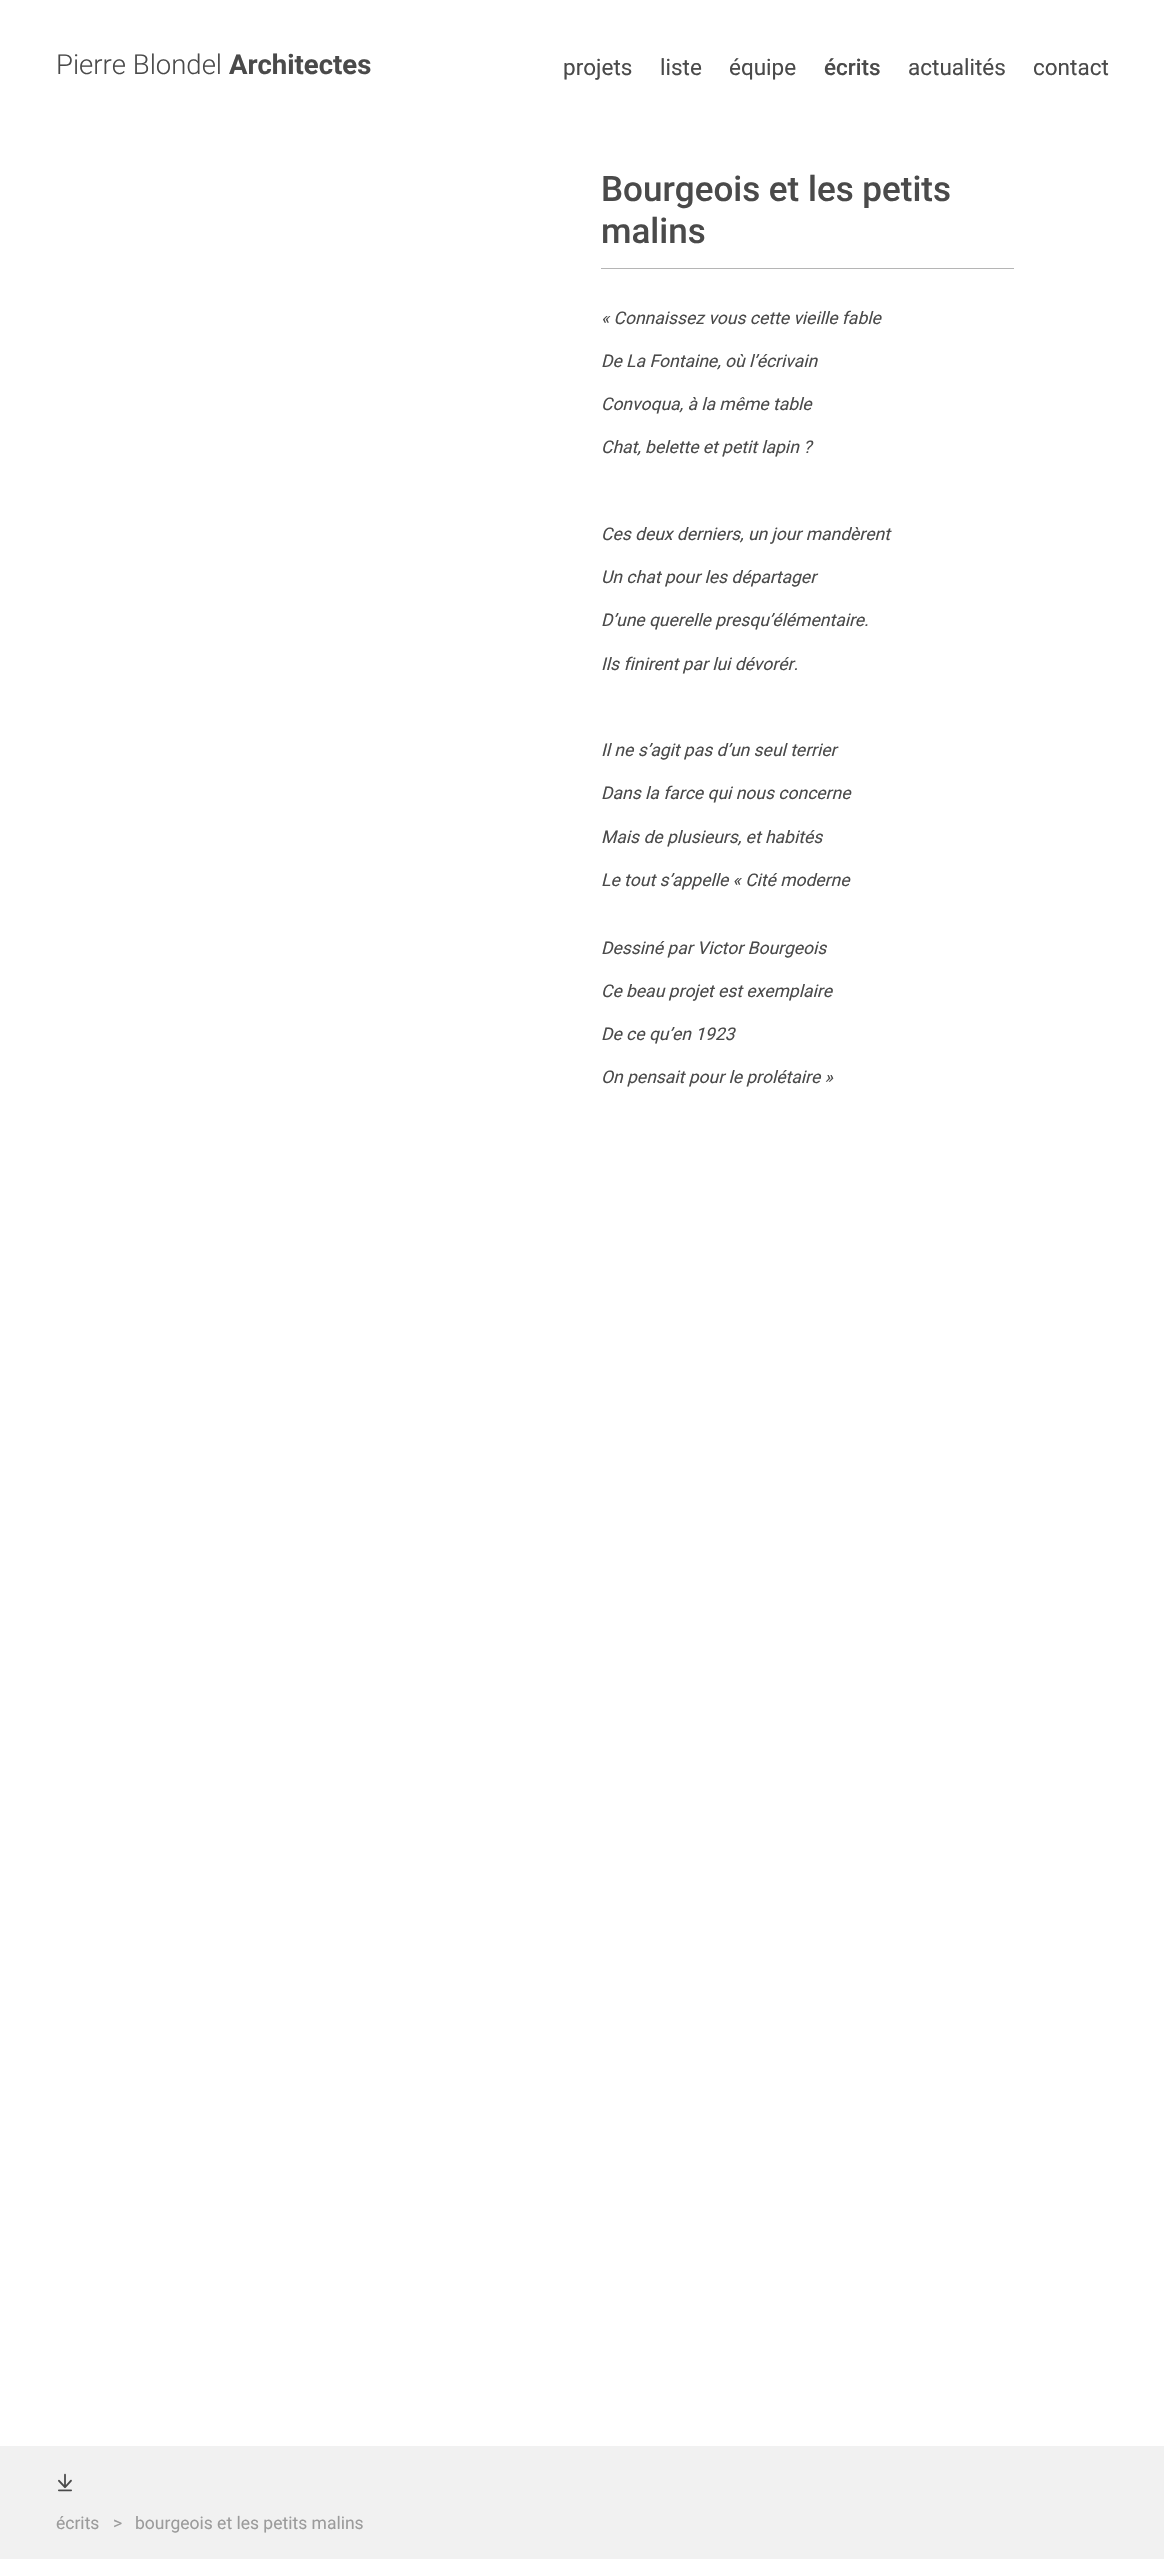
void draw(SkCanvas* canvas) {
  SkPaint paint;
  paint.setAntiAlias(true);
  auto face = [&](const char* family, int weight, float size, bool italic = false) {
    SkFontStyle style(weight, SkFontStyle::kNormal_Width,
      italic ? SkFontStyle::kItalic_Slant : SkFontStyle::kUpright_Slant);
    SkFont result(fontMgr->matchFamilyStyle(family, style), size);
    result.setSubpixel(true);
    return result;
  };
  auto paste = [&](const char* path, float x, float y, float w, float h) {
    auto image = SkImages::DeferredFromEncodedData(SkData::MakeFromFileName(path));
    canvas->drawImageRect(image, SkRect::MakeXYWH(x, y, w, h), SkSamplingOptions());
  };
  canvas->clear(0xffffffff);
  paint.setColor(0xffb5b5b5);
  canvas->drawRect(SkRect::MakeXYWH(601, 268, 413, 1), paint);
  paint.setColor(0xfff1f1f1);
  canvas->drawRect(SkRect::MakeXYWH(0, 2446, 1164, 113), paint);
  paste("img/1.png", 58, 2473, 14, 19);
  auto f0 = face("Roboto", 300, 27.5f);
  paint.setColor(0xff4a4a4a);
  canvas->drawString("Pierre Blondel", 56, 74, f0, paint);
  auto f1 = face("Roboto", 700, 27.5f);
  canvas->drawString("Architectes", 229, 74, f1, paint);
  auto f2 = face("Roboto", 400, 22.5f);
  {
    const struct { const char* s; float x, y; } items[] = {
      {"projets", 563, 75},
      {"liste", 660, 75},
      {"équipe", 729, 75},
    };
    for (auto [s, x, y] : items) {
      canvas->drawString(s, x, y, f2, paint);
    }
  }
  auto f3 = face("Roboto", 500, 22.5f);
  canvas->drawString("écrits", 824, 75, f3, paint);
  canvas->drawString("actualités", 908, 75, f2, paint);
  canvas->drawString("contact", 1033, 75, f2, paint);
  auto f4 = face("Roboto", 500, 35);
  canvas->drawString("Bourgeois et les petits", 601, 201, f4, paint);
  canvas->drawString("malins", 601, 243, f4, paint);
  auto f5 = face("Roboto", 400, 17.5f, true);
  {
    const struct { const char* s; float x, y; } items[] = {
      {"« Connaissez vous cette vieille fable", 601, 324},
      {"De La Fontaine, où l’écrivain", 601, 367},
      {"Convoqua, à la même table", 601, 410},
      {"Chat, belette et petit lapin ?", 601, 453},
      {"Ces deux derniers, un jour mandèrent", 601, 540},
      {"Un chat pour les départager", 601, 583},
      {"D’une querelle presqu’élémentaire.", 601, 626},
      {"Ils finirent par lui dévorér.", 601, 670},
      {"Il ne s’agit pas d’un seul terrier", 601, 756},
      {"Dans la farce qui nous concerne", 601, 799},
      {"Mais de plusieurs, et habités", 601, 843},
      {"Le tout s’appelle « Cité moderne", 601, 886},
      {"Dessiné par Victor Bourgeois", 601, 954},
      {"Ce beau projet est exemplaire", 601, 997},
      {"De ce qu’en 1923", 601, 1040},
      {"On pensait pour le prolétaire »", 601, 1083},
    };
    for (auto [s, x, y] : items) {
      canvas->drawString(s, x, y, f5, paint);
    }
  }
  auto f6 = face("Roboto", 400, 17.5f);
  paint.setColor(0xff9b9b9b);
  {
    const struct { const char* s; float x, y; } items[] = {
      {"écrits", 56, 2529},
      {">", 113, 2529},
      {"bourgeois et les petits malins", 135, 2529},
    };
    for (auto [s, x, y] : items) {
      canvas->drawString(s, x, y, f6, paint);
    }
  }
}
